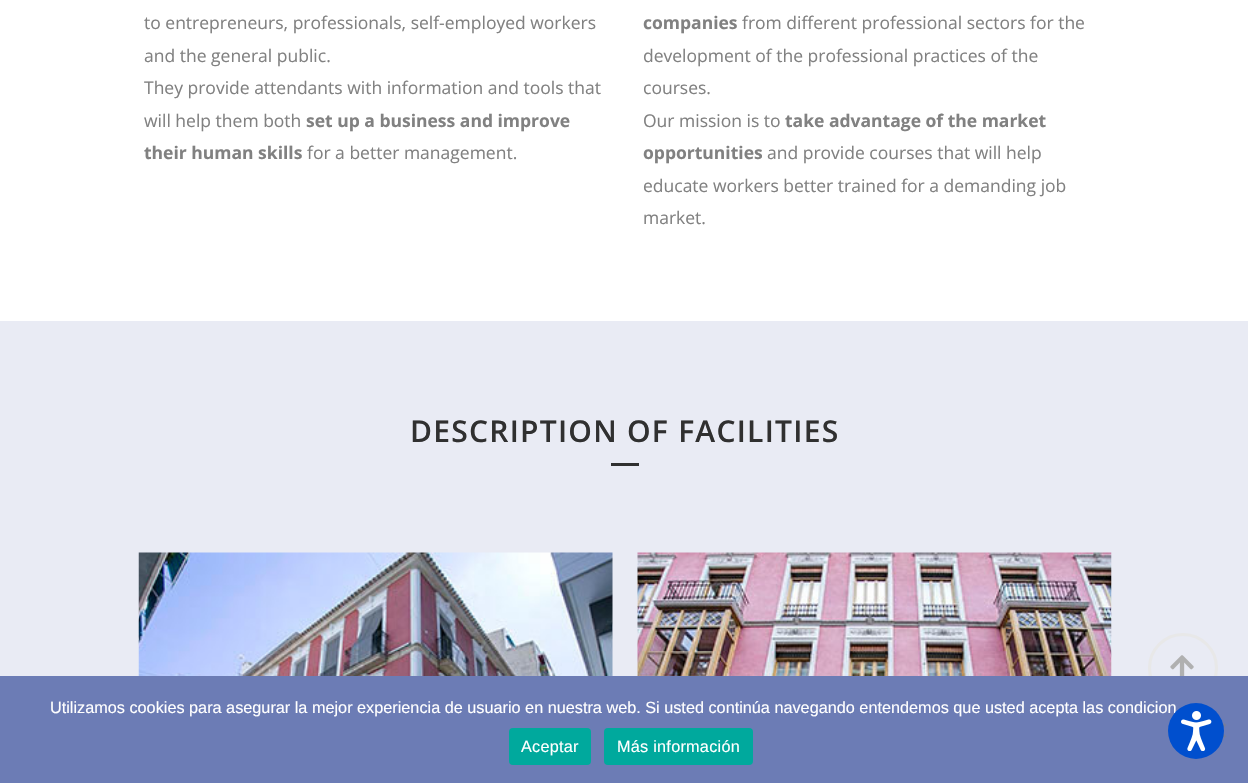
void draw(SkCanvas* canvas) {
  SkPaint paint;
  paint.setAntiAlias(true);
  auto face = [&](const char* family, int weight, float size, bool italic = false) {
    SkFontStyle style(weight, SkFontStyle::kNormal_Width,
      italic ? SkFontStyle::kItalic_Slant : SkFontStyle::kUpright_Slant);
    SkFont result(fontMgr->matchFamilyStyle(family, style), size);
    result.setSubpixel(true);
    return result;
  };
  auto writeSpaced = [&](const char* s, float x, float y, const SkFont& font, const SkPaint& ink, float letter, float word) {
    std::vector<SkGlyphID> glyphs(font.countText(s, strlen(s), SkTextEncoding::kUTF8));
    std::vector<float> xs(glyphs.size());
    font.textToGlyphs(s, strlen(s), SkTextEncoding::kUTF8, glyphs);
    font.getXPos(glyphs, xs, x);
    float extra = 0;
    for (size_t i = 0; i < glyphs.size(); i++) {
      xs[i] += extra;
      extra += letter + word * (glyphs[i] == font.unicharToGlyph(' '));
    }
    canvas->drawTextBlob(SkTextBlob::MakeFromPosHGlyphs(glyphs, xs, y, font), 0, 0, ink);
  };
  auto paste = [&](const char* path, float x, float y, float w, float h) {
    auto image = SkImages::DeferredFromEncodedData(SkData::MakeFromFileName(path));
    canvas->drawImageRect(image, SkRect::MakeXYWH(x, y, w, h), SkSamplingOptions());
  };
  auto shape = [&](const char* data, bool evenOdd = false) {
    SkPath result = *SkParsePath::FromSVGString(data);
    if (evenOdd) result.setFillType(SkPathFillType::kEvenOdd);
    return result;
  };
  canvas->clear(0xffffffff);
  paint.setColor(0xffe9ebf4);
  canvas->drawRect(SkRect::MakeXYWH(0, 321, 1248, 355), paint);
  paint.setColor(0xff303030);
  canvas->drawRect(SkRect::MakeXYWH(611, 463, 28, 3), paint);
  paste("img/1.png", 138, 552, 475, 124);
  paste("img/2.png", 637, 552, 475, 124);
  paint.setStroke(true);
  paint.setStrokeWidth(3);
  paint.setColor(0xffe8e8e8);
  canvas->drawCircle(1183, 668, 33.5f, paint);
  paste("img/3.png", 1170, 655, 24, 21);
  paint.setStroke(false);
  paint.setColor(0xff6c7cb5);
  canvas->drawRect(SkRect::MakeXYWH(0, 676, 1248, 107), paint);
  paint.setColor(0xff767e9b);
  canvas->drawPath(shape("M1224.5 723L1226.5 725L1213 738L1211 736.5Z"), paint);
  canvas->drawPath(shape("M1211 725L1213 723L1226.5 736.5L1224.5 738Z"), paint);
  paint.setColor(0xff00a99d);
  canvas->drawRoundRect(SkRect::MakeXYWH(509, 728, 82, 37), 4, 4, paint);
  canvas->drawRoundRect(SkRect::MakeXYWH(604, 728, 149, 37), 4, 4, paint);
  auto f0 = face("Open Sans", 400, 17.5f);
  paint.setColor(0xff818181);
  {
    const struct { const char* s; float x, y; } items[] = {
      {"to entrepreneurs, professionals, self-employed workers", 144, 29},
      {"and the general public.", 144, 62},
      {"They provide attendants with information and tools that", 144, 94},
      {"will help them both", 144, 127},
    };
    for (auto [s, x, y] : items) {
      canvas->drawString(s, x, y, f0, paint);
    }
  }
  auto f1 = face("Open Sans", 700, 17.5f);
  canvas->drawString("set up a business and improve", 306, 127, f1, paint);
  canvas->drawString("their human skills", 144, 159, f1, paint);
  canvas->drawString("for a better management.", 307, 159, f0, paint);
  canvas->drawString("companies", 643, 29, f1, paint);
  {
    const struct { const char* s; float x, y; } items[] = {
      {"from different professional sectors for the", 742, 29},
      {"development of the professional practices of the", 643, 62},
      {"courses.", 643, 94},
      {"Our mission is to", 643, 127},
    };
    for (auto [s, x, y] : items) {
      canvas->drawString(s, x, y, f0, paint);
    }
  }
  canvas->drawString("take advantage of the market", 785, 127, f1, paint);
  canvas->drawString("opportunities", 643, 159, f1, paint);
  {
    const struct { const char* s; float x, y; } items[] = {
      {"and provide courses that will help", 767, 159},
      {"educate workers better trained for a demanding job", 643, 192},
      {"market.", 643, 224},
    };
    for (auto [s, x, y] : items) {
      canvas->drawString(s, x, y, f0, paint);
    }
  }
  auto f2 = face("Open Sans", 600, 30);
  paint.setColor(0xff303030);
  writeSpaced("DESCRIPTION OF FACILITIES", 410, 442, f2, paint, 1.25f, 0);
  auto f3 = face("Liberation Sans", 400, 16.25f);
  paint.setColor(0xffffffff);
  canvas->drawString("Utilizamos cookies para asegurar la mejor experiencia de usuario en nuestra web. Si usted continúa navegando entendemos que usted acepta las condicion", 50, 713, f3, paint);
  writeSpaced("Aceptar", 521, 752, f3, paint, 0.25f, 0);
  writeSpaced("Más información", 617, 752, f3, paint, 0.25f, 0);
  paint.setColor(0xff004fce);
  canvas->drawCircle(1196, 731, 28, paint);
  paste("img/4.png", 1181, 711, 31, 40);
}
